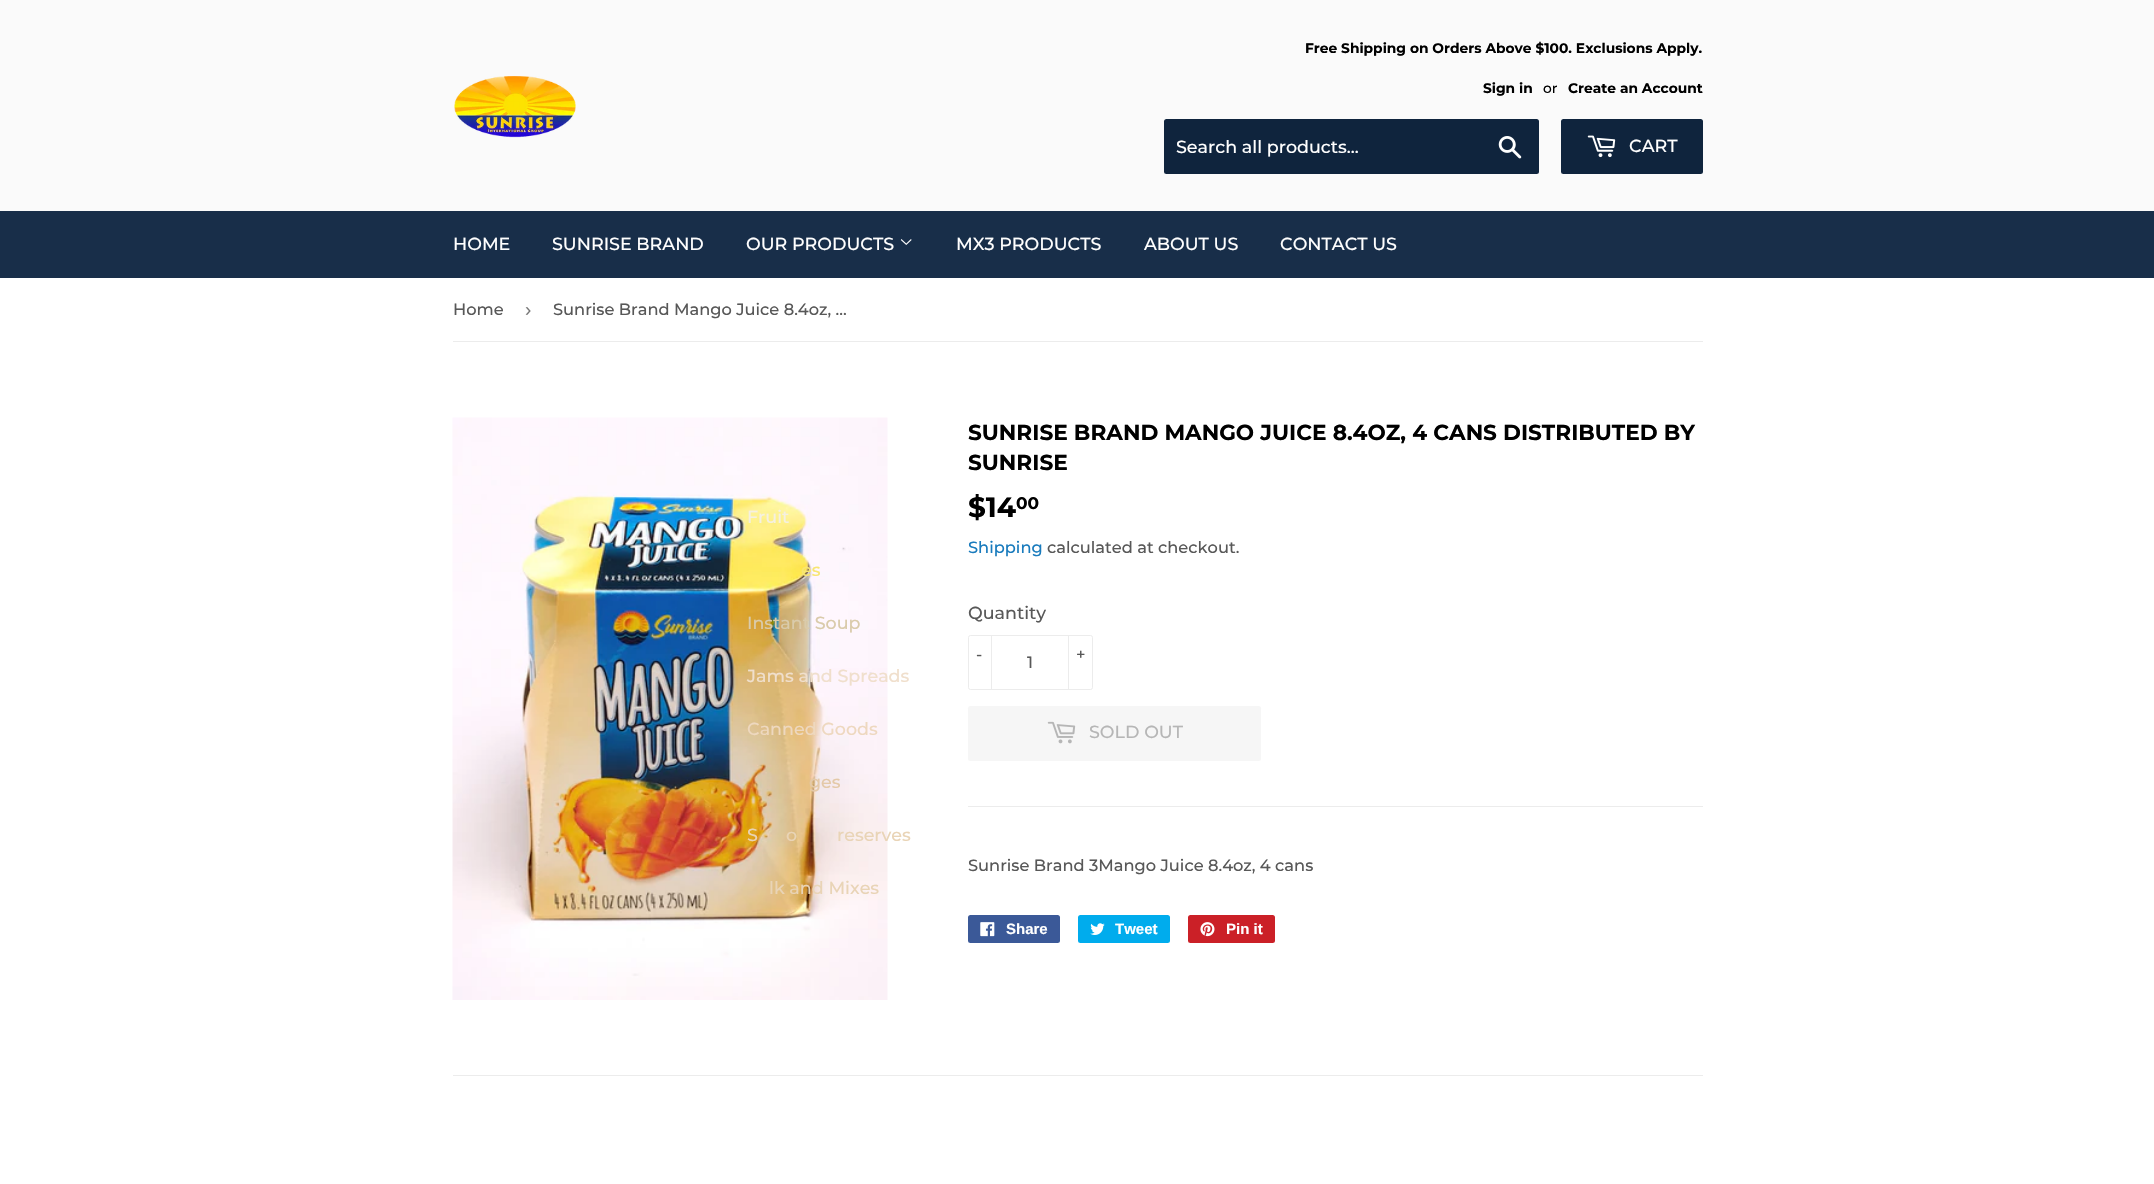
void draw(SkCanvas* canvas) {
  SkPaint paint;
  paint.setAntiAlias(true);
  auto face = [&](const char* family, int weight, float size, bool italic = false) {
    SkFontStyle style(weight, SkFontStyle::kNormal_Width,
      italic ? SkFontStyle::kItalic_Slant : SkFontStyle::kUpright_Slant);
    SkFont result(fontMgr->matchFamilyStyle(family, style), size);
    result.setSubpixel(true);
    return result;
  };
  auto paste = [&](const char* path, float x, float y, float w, float h) {
    auto image = SkImages::DeferredFromEncodedData(SkData::MakeFromFileName(path));
    canvas->drawImageRect(image, SkRect::MakeXYWH(x, y, w, h), SkSamplingOptions());
  };
  canvas->clear(0xffffffff);
  paint.setColor(0xfffafafa);
  canvas->drawRect(SkRect::MakeXYWH(0, 0, 2154, 211), paint);
  paste("img/1.png", 454, 76, 122, 62);
  paint.setColor(0xff0f243d);
  canvas->drawRoundRect(SkRect::MakeXYWH(1164, 119, 375, 55), 2.5f, 2.5f, paint);
  paste("img/2.png", 1498, 136, 24, 23);
  canvas->drawRoundRect(SkRect::MakeXYWH(1561, 119, 142, 55), 2.5f, 2.5f, paint);
  paste("img/3.png", 1587, 135, 29, 23);
  paint.setColor(0xff182e49);
  canvas->drawRect(SkRect::MakeXYWH(0, 211, 2154, 67), paint);
  paste("img/4.png", 900, 239, 12, 6);
  paint.setColor(0xffececec);
  canvas->drawRect(SkRect::MakeXYWH(453, 341, 1250, 1), paint);
  paste("img/5.png", 452, 417, 436, 583);
  paint.setStroke(true);
  paint.setStrokeWidth(1);
  canvas->drawRoundRect(SkRect::MakeXYWH(968.5f, 635.5f, 124, 54), 2, 2, paint);
  paint.setStroke(false);
  canvas->drawRect(SkRect::MakeXYWH(991, 635, 1, 55), paint);
  canvas->drawRect(SkRect::MakeXYWH(1068, 635, 1, 55), paint);
  paint.setColor(0xfff6f6f6);
  canvas->drawRoundRect(SkRect::MakeXYWH(968, 706, 293, 55), 2.5f, 2.5f, paint);
  paste("img/6.png", 1047, 721, 29, 23);
  paint.setColor(0xffececec);
  canvas->drawRect(SkRect::MakeXYWH(968, 806, 735, 1), paint);
  paint.setColor(0xff3b5998);
  canvas->drawRoundRect(SkRect::MakeXYWH(968, 915, 92, 28), 2.5f, 2.5f, paint);
  paste("img/7.png", 980, 922, 15, 15);
  paint.setColor(0xff00aced);
  canvas->drawRoundRect(SkRect::MakeXYWH(1078, 915, 92, 28), 2.5f, 2.5f, paint);
  paste("img/8.png", 1090, 923, 15, 12);
  paint.setColor(0xffcb2027);
  canvas->drawRoundRect(SkRect::MakeXYWH(1188, 915, 87, 28), 2.5f, 2.5f, paint);
  paste("img/9.png", 1200, 922, 15, 15);
  paint.setColor(0xffececec);
  canvas->drawRect(SkRect::MakeXYWH(453, 1075, 1250, 1), paint);
  auto f0 = face("Montserrat", 700, 13.8f);
  paint.setColor(0xff000000);
  canvas->drawString("Free Shipping on Orders Above $100. Exclusions Apply.", 1305, 53, f0, paint);
  canvas->drawString("Sign in", 1483, 93, f0, paint);
  auto f1 = face("Montserrat", 500, 13.8f);
  canvas->drawString("or", 1543, 93, f1, paint);
  canvas->drawString("Create an Account", 1568, 93, f0, paint);
  auto f2 = face("Montserrat", 500, 17.5f);
  paint.setColor(0xffffffff);
  {
    const struct { const char* s; float x, y; } items[] = {
      {"Search all products...", 1176, 153},
      {"CART", 1629, 152},
      {"HOME", 453, 250},
      {"SUNRISE BRAND", 552, 250},
      {"OUR PRODUCTS", 746, 250},
    };
    for (auto [s, x, y] : items) {
      canvas->drawString(s, x, y, f2, paint);
    }
  }
  paint.setColor(0xfff5f0e1);
  canvas->drawString("Fruit", 747, 523, f2, paint);
  paint.setColor(0xfff8e672);
  canvas->drawString("es", 801, 576, f2, paint);
  paint.setColor(0xffdacbab);
  canvas->drawString("Instant Soup", 747, 629, f2, paint);
  paint.setColor(0xfff0dfcc);
  canvas->drawString("Jams and Spreads", 747, 682, f2, paint);
  paint.setColor(0xffeed8bf);
  canvas->drawString("Canned Goods", 747, 735, f2, paint);
  paint.setColor(0xffe4c9a8);
  canvas->drawString("ges", 809, 788, f2, paint);
  paint.setColor(0xffe9d4b6);
  {
    const struct { const char* s; float x, y; } items[] = {
      {"S", 747, 841},
      {"o", 786, 841},
      {"reserves", 837, 841},
      {"lk and Mixes", 769, 894},
    };
    for (auto [s, x, y] : items) {
      canvas->drawString(s, x, y, f2, paint);
    }
  }
  paint.setColor(0xffffffff);
  {
    const struct { const char* s; float x, y; } items[] = {
      {"MX3 PRODUCTS", 956, 250},
      {"ABOUT US", 1144, 250},
      {"CONTACT US", 1280, 250},
    };
    for (auto [s, x, y] : items) {
      canvas->drawString(s, x, y, f2, paint);
    }
  }
  auto f3 = face("Montserrat", 500, 16.25f);
  paint.setColor(0xff585858);
  canvas->drawString("Home", 453, 315, f3, paint);
  auto f4 = face("Liberation Sans", 400, 19);
  paint.setColor(0xff767676);
  canvas->drawString("›", 525, 316, f4, paint);
  paint.setColor(0xff585858);
  canvas->drawString("Sunrise Brand Mango Juice 8.4oz, …", 553, 315, f3, paint);
  auto f5 = face("Montserrat", 700, 21.65f);
  paint.setColor(0xff000000);
  canvas->drawString("SUNRISE BRAND MANGO JUICE 8.4OZ, 4 CANS DISTRIBUTED BY", 968, 440, f5, paint);
  canvas->drawString("SUNRISE", 968, 470, f5, paint);
  auto f6 = face("Montserrat", 700, 28);
  canvas->drawString("$14", 968, 517, f6, paint);
  auto f7 = face("Montserrat", 700, 17);
  canvas->drawString("00", 1016, 509, f7, paint);
  paint.setColor(0xff197bbd);
  canvas->drawString("Shipping", 968, 553, f3, paint);
  paint.setColor(0xff585858);
  canvas->drawString("calculated at checkout.", 1047, 553, f3, paint);
  canvas->drawString("Quantity", 968, 619, f2, paint);
  {
    const struct { const char* s; float x, y; } items[] = {
      {"-", 976, 660},
      {"+", 1076, 660},
      {"1", 1027, 668},
    };
    for (auto [s, x, y] : items) {
      canvas->drawString(s, x, y, f3, paint);
    }
  }
  paint.setColor(0xffb6b6b6);
  canvas->drawString("SOLD OUT", 1089, 738, f2, paint);
  paint.setColor(0xff585858);
  canvas->drawString("Sunrise Brand 3Mango Juice 8.4oz, 4 cans", 968, 871, f3, paint);
  auto f8 = face("Liberation Sans", 700, 15);
  paint.setColor(0xffffffff);
  {
    const struct { const char* s; float x, y; } items[] = {
      {"Share", 1006, 934},
      {"Tweet", 1115, 934},
      {"Pin it", 1226, 934},
    };
    for (auto [s, x, y] : items) {
      canvas->drawString(s, x, y, f8, paint);
    }
  }
}
